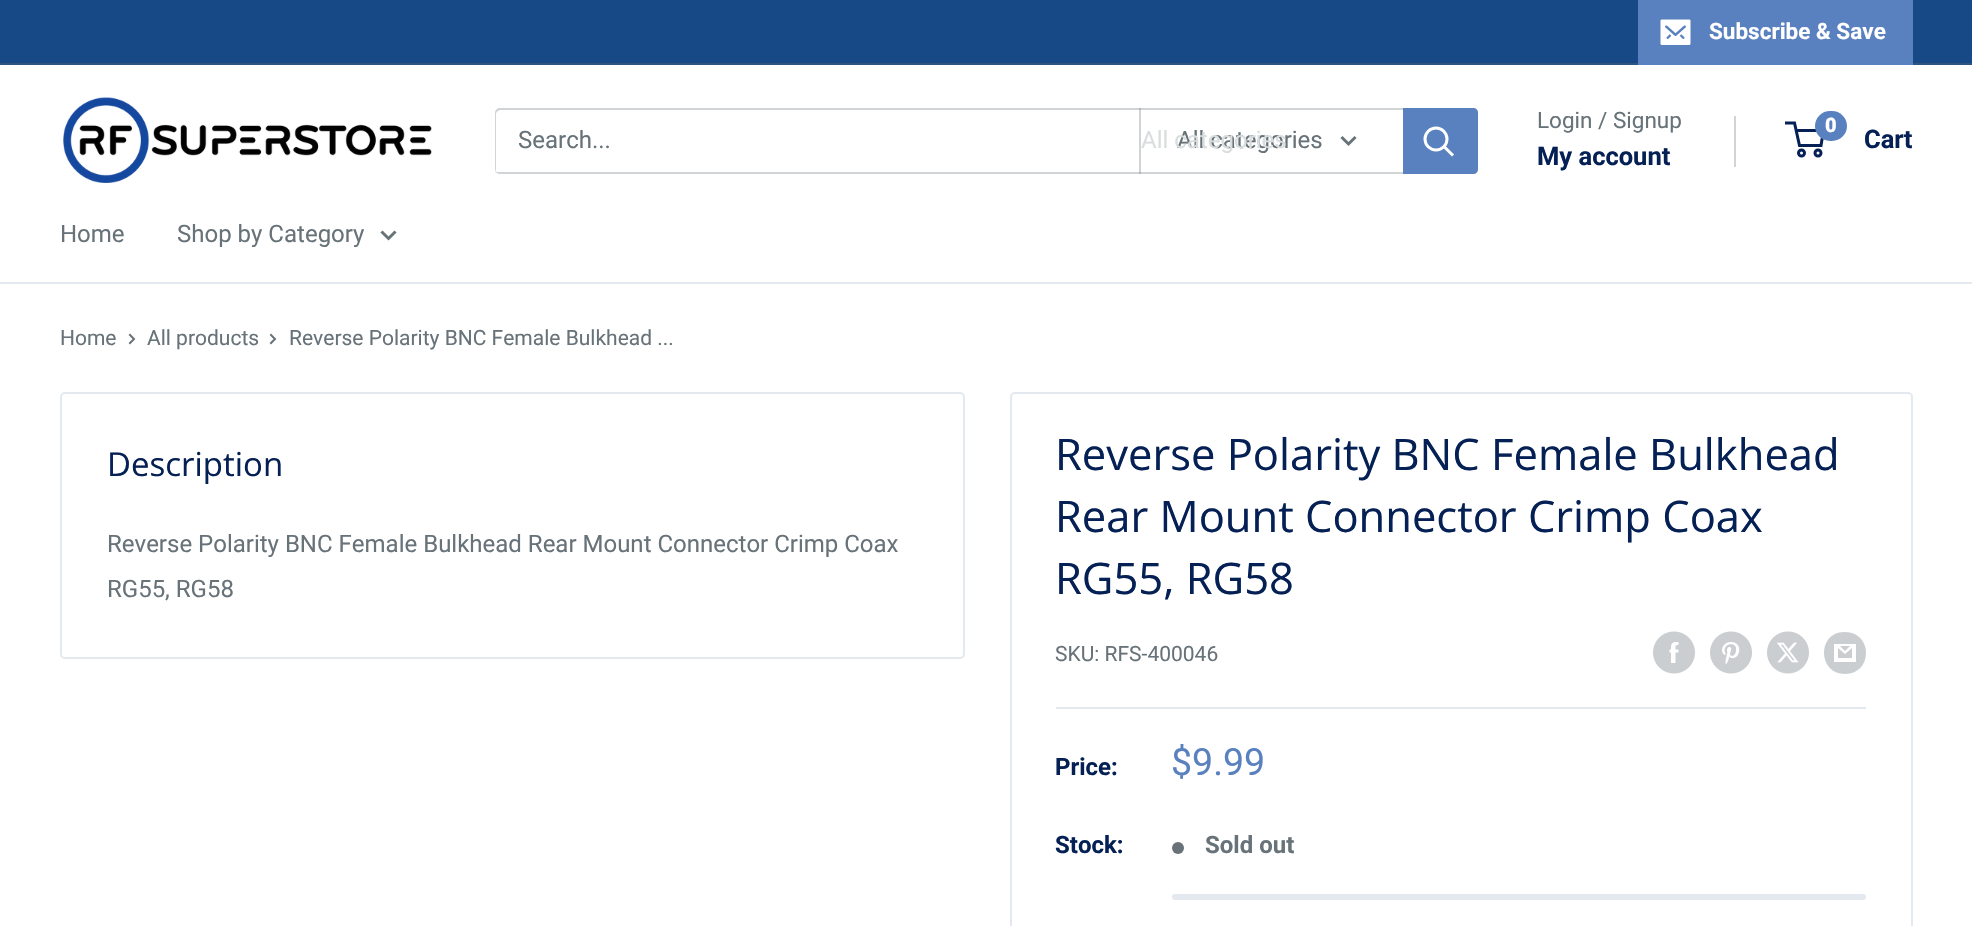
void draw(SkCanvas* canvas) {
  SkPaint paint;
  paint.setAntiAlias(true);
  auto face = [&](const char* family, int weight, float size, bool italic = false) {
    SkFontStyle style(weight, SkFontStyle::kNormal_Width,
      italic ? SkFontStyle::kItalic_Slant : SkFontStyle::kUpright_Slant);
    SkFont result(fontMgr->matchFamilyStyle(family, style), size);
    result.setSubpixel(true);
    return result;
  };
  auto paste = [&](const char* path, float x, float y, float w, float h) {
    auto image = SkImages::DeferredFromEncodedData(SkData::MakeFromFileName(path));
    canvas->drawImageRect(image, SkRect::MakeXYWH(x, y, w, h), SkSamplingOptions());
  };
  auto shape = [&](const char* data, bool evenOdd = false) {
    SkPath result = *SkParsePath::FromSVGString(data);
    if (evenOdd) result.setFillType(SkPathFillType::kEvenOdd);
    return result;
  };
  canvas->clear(0xffffffff);
  paint.setColor(0xff164985);
  canvas->drawRect(SkRect::MakeXYWH(0, 0, 1972, 63), paint);
  paint.setColor(0xff2e5581);
  canvas->drawRect(SkRect::MakeXYWH(0, 63, 1972, 2), paint);
  paint.setColor(0xff5a81bf);
  canvas->drawPath(shape("M1638 63V65H1913V2H1912V63Z"), paint);
  canvas->drawRect(SkRect::MakeXYWH(1638, 0, 275, 63), paint);
  paste("img/1.png", 1660, 19, 31, 26);
  paste("img/2.png", 63, 97, 369, 86);
  paint.setColor(0xffd1d5d7);
  canvas->drawPath(shape("M495 171C496 173 498 174 500 174H1473C1476 174 1478 172 1478 169V113C1478 111 1477 109 1475 109L1476 111V168C1476 170 1474 172 1472 172H498C497 172 496 172 495 171Z"), paint);
  paint.setColor(0x4d677279);
  canvas->drawPath(shape("M501 110H1474C1476 110 1477 111 1478 111C1477 109 1475 108 1473 108H500C497 108 495 110 495 113V169C495 170 496 172 496 173V171V114C496 112 499 110 501 110Z"), paint);
  canvas->drawRect(SkRect::MakeXYWH(1139, 108, 2, 66), paint);
  paint.setStroke(true);
  paint.setStrokeWidth(3);
  paint.setStrokeCap(SkPaint::kSquare_Cap);
  paint.setColor(0xff677279);
  canvas->drawPath(shape("M1354.5 138L1348.5 144L1342.5 138"), paint);
  paint.setStroke(false);
  paint.setColor(0xff5a81bf);
  canvas->drawPath(shape("M1403 108H1473C1476 108 1478 110 1478 113V169C1478 172 1476 174 1473 174H1403Z"), paint);
  paint.setStroke(true);
  paint.setColor(0xffffffff);
  canvas->drawPath(shape("M1452 154.5L1444.5 147"), paint);
  paint.setStrokeCap(SkPaint::kButt_Cap);
  canvas->drawCircle(1436, 139, 11, paint);
  paint.setStroke(false);
  paint.setColor(0xffd1d5d7);
  canvas->drawRect(SkRect::MakeXYWH(1734, 116, 2, 51), paint);
  paint.setStroke(true);
  paint.setColor(0xff052054);
  canvas->drawCircle(1801.5f, 153, 3, paint);
  canvas->drawCircle(1818, 153, 3, paint);
  canvas->drawPath(shape("M1796 130.5H1823.5L1821 145.5H1799.5L1794.5 123H1785"), paint);
  paint.setStroke(false);
  paint.setColor(0xff5a81bf);
  canvas->drawRoundRect(SkRect::MakeXYWH(1815, 111, 32, 30), 15, 15, paint);
  paint.setColor(0xffe3e9ef);
  canvas->drawRect(SkRect::MakeXYWH(0, 282, 1972, 2), paint);
  paint.setStroke(true);
  paint.setStrokeCap(SkPaint::kSquare_Cap);
  paint.setColor(0xff677279);
  canvas->drawPath(shape("M394.5 232.5L388.5 238.5L382.5 232.5"), paint);
  paint.setStrokeWidth(2);
  canvas->drawPath(shape("M130 335L134 339L130 343"), paint);
  canvas->drawPath(shape("M271 335L275 339L271 343"), paint);
  paint.setStrokeCap(SkPaint::kButt_Cap);
  paint.setColor(0xffe3e9ef);
  canvas->drawRoundRect(SkRect::MakeXYWH(61, 393, 903, 265), 4, 4, paint);
  canvas->drawRoundRect(SkRect::MakeXYWH(1011, 393, 901, 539), 4, 4, paint);
  paste("img/3.png", 1653, 631, 42, 43);
  paste("img/4.png", 1710, 631, 42, 43);
  paste("img/5.png", 1767, 631, 42, 43);
  paint.setStroke(false);
  paint.setColor(0xffcaced0);
  canvas->drawPath(shape("M1845 674C1817 674 1817 631 1845 632C1873 632 1873 674 1845 674ZM1840 646H1850L1845 651ZM1852 648V658H1838V648L1845 654ZM1856 644H1834V662H1856Z"), paint);
  paint.setColor(0xffe3e9ef);
  canvas->drawRect(SkRect::MakeXYWH(1056, 707, 810, 2), paint);
  paint.setColor(0xff677279);
  canvas->drawCircle(1178, 848, 6, paint);
  paint.setColor(0xffe3e9ef);
  canvas->drawRoundRect(SkRect::MakeXYWH(1172, 894, 694, 6), 3, 3, paint);
  auto f0 = face("Roboto", 700, 22.5f);
  paint.setColor(0xffffffff);
  canvas->drawString("Subscribe & Save", 1709, 39, f0, paint);
  auto f1 = face("Roboto", 400, 24);
  paint.setColor(0xff677279);
  canvas->drawString("Search...", 518, 148, f1, paint);
  canvas->drawString("All categories", 1177, 148, f1, paint);
  paint.setColor(0xffdaddde);
  canvas->drawString("All categories", 1141, 148, f1, paint);
  auto f2 = face("Roboto", 400, 22.5f);
  paint.setColor(0xff677279);
  canvas->drawString("Login / Signup", 1537, 128, f2, paint);
  auto f3 = face("Roboto", 700, 25.5f);
  paint.setColor(0xff052054);
  canvas->drawString("My account", 1537, 165, f3, paint);
  auto f4 = face("Roboto", 900, 20);
  paint.setColor(0xffffffff);
  canvas->drawString("0", 1825, 132, f4, paint);
  paint.setColor(0xff052054);
  canvas->drawString("Cart", 1864, 148, f3, paint);
  paint.setColor(0xff677279);
  canvas->drawString("Home", 60, 242, f1, paint);
  canvas->drawString("Shop by Category", 177, 242, f1, paint);
  auto f5 = face("Roboto", 400, 21);
  {
    const struct { const char* s; float x, y; } items[] = {
      {"Home", 60, 345},
      {"All products", 147, 345},
      {"Reverse Polarity BNC Female Bulkhead ...", 289, 345},
    };
    for (auto [s, x, y] : items) {
      canvas->drawString(s, x, y, f5, paint);
    }
  }
  auto f6 = face("Open Sans", 400, 33);
  paint.setColor(0xff052054);
  canvas->drawString("Description", 107, 476, f6, paint);
  paint.setColor(0xff677279);
  canvas->drawString("Reverse Polarity BNC Female Bulkhead Rear Mount Connector Crimp Coax", 107, 552, f1, paint);
  canvas->drawString("RG55, RG58", 107, 597, f1, paint);
  auto f7 = face("Open Sans", 400, 43.5f);
  paint.setColor(0xff052054);
  {
    const struct { const char* s; float x, y; } items[] = {
      {"Reverse Polarity BNC Female Bulkhead", 1055, 470},
      {"Rear Mount Connector Crimp Coax", 1055, 532},
      {"RG55, RG58", 1055, 594},
    };
    for (auto [s, x, y] : items) {
      canvas->drawString(s, x, y, f7, paint);
    }
  }
  paint.setColor(0xff677279);
  canvas->drawString("SKU: RFS-400046", 1055, 661, f5, paint);
  auto f8 = face("Roboto", 700, 24);
  paint.setColor(0xff052054);
  canvas->drawString("Price:", 1055, 775, f8, paint);
  auto f9 = face("Roboto", 400, 37.5f);
  paint.setColor(0xff5a81bf);
  canvas->drawString("$9.99", 1171, 775, f9, paint);
  paint.setColor(0xff052054);
  canvas->drawString("Stock:", 1055, 853, f8, paint);
  paint.setColor(0xff677279);
  canvas->drawString("Sold out", 1205, 853, f8, paint);
}
